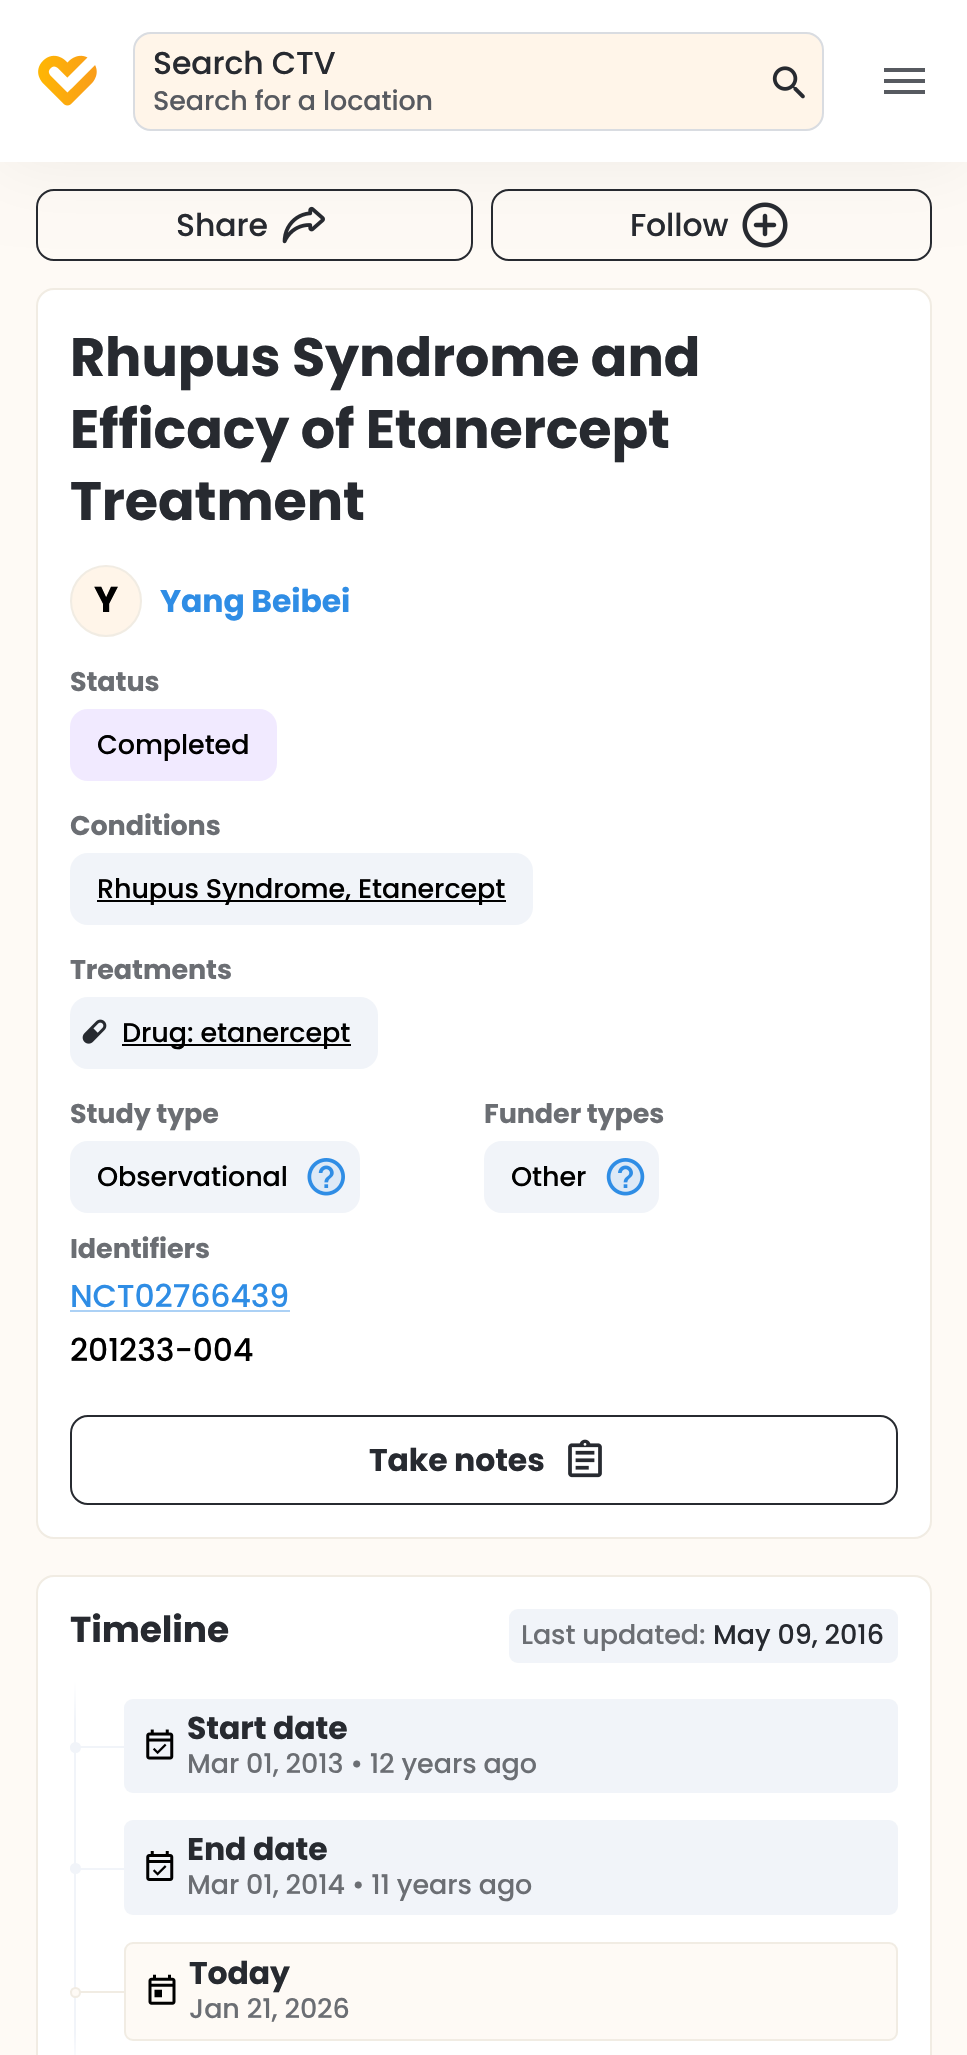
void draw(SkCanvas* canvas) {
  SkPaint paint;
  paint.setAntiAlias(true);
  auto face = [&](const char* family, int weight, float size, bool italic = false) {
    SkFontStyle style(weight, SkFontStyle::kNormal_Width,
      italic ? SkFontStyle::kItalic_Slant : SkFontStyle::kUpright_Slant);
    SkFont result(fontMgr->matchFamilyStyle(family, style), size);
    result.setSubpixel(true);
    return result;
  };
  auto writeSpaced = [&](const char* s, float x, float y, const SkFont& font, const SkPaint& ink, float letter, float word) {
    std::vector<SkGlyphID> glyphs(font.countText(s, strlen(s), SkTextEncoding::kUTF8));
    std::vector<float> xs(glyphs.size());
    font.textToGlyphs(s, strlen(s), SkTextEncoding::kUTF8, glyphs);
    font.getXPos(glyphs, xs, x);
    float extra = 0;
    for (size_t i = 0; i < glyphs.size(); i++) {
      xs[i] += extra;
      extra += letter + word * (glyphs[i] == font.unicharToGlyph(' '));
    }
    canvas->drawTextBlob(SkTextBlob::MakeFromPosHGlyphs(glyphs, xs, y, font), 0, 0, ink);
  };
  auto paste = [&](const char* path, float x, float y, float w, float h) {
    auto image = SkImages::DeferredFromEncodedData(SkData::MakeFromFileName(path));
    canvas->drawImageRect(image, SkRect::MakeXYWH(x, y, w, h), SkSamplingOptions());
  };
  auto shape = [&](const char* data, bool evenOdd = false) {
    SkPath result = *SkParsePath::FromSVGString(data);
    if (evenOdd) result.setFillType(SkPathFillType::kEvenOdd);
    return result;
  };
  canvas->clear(0xfffefaf5);
  paint.setStroke(true);
  paint.setStrokeWidth(2);
  paint.setColor(0xff272a30);
  canvas->drawRoundRect(SkRect::MakeXYWH(37, 190, 435, 70), 17, 17, paint);
  paste("img/3.png", 282, 206, 43, 38);
  canvas->drawRoundRect(SkRect::MakeXYWH(492, 190, 439, 70), 17, 17, paint);
  paste("img/4.png", 742, 202, 46, 46);
  paint.setStroke(false);
  paint.setColor(0x0f000000);
  paint.setMaskFilter(SkMaskFilter::MakeBlur(kNormal_SkBlurStyle, 36));
  canvas->drawRect(SkRect::MakeXYWH(0, 0, 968, 162), paint);
  paint.setMaskFilter(nullptr);
  paint.setColor(0xffffffff);
  canvas->drawRect(SkRect::MakeXYWH(0, 0, 967, 162), paint);
  paste("img/1.png", 38, 55, 59, 51);
  paint.setColor(0xfffff5e9);
  canvas->drawRoundRect(SkRect::MakeXYWH(134, 33, 689, 97), 17, 17, paint);
  paint.setStroke(true);
  paint.setColor(0xffd9dce1);
  canvas->drawRoundRect(SkRect::MakeXYWH(134, 33, 689, 97), 17, 17, paint);
  paste("img/2.png", 772, 66, 33, 33);
  paint.setStroke(false);
  paint.setColor(0xff575a60);
  canvas->drawPath(shape("M884 94H925V90H884ZM884 83H925V79H884ZM884 68V72H925V68Z"), paint);
  paint.setColor(0xffffffff);
  canvas->drawRoundRect(SkRect::MakeXYWH(37, 289, 894, 1249), 17, 17, paint);
  paint.setStroke(true);
  paint.setColor(0xfff1ece3);
  canvas->drawRoundRect(SkRect::MakeXYWH(37, 289, 894, 1249), 17, 17, paint);
  paint.setStroke(false);
  paint.setColor(0xfffff5e9);
  canvas->drawCircle(106, 601, 35, paint);
  paint.setStroke(true);
  paint.setColor(0xfff1ece3);
  canvas->drawCircle(106, 601, 35, paint);
  paint.setStroke(false);
  paint.setColor(0xfff1eaff);
  canvas->drawRoundRect(SkRect::MakeXYWH(70, 709, 207, 72), 18, 18, paint);
  paint.setColor(0xfff1f4f9);
  canvas->drawRoundRect(SkRect::MakeXYWH(70, 853, 463, 72), 18, 18, paint);
  paint.setColor(0xff000000);
  canvas->drawRect(SkRect::MakeXYWH(97, 900, 409, 2), paint);
  paint.setColor(0xfff1f4f9);
  canvas->drawRoundRect(SkRect::MakeXYWH(70, 997, 308, 72), 18, 18, paint);
  paste("img/5.png", 82, 1019, 25, 25);
  paint.setColor(0xff000000);
  canvas->drawRect(SkRect::MakeXYWH(122, 1044, 229, 2), paint);
  paint.setColor(0xfff1f4f9);
  canvas->drawRoundRect(SkRect::MakeXYWH(70, 1141, 290, 72), 18, 18, paint);
  paste("img/6.png", 307, 1158, 38, 38);
  canvas->drawRoundRect(SkRect::MakeXYWH(484, 1141, 175, 72), 18, 18, paint);
  paste("img/7.png", 606, 1158, 39, 38);
  paint.setColor(0xffacd1f5);
  canvas->drawRect(SkRect::MakeXYWH(70, 1310, 220, 2), paint);
  paint.setStroke(true);
  paint.setColor(0xff272a30);
  canvas->drawRoundRect(SkRect::MakeXYWH(71, 1416, 826, 88), 17, 17, paint);
  paste("img/8.png", 568, 1439, 34, 39);
  paint.setStroke(false);
  paint.setColor(0xffffffff);
  canvas->drawRoundRect(SkRect::MakeXYWH(37, 1576, 894, 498), 17, 17, paint);
  paint.setStroke(true);
  paint.setColor(0xfff1ece3);
  canvas->drawRoundRect(SkRect::MakeXYWH(37, 1576, 894, 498), 17, 17, paint);
  paint.setStroke(false);
  paint.setColor(0xfff1f4f9);
  canvas->drawRoundRect(SkRect::MakeXYWH(509, 1609, 389, 54), 9, 9, paint);
  {
    const SkColor colors[] = {0xffffffff, 0xfff1f4f9, 0xfff1f4f9, 0xffffffff};
    const float stops[] = {0, 0.1f, 0.9f, 1};
    const SkPoint ends[] = {{75, 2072}, {75, 1681}};
    paint.setShader(SkGradientShader::MakeLinear(ends, colors, stops, 4, SkTileMode::kClamp));
    paint.setAlpha(255);
  }
  canvas->drawRect(SkRect::MakeXYWH(74, 1681, 2, 374), paint);
  paint.setShader(nullptr);
  paint.setColor(0xfff1f4f9);
  canvas->drawRect(SkRect::MakeXYWH(70, 1746, 54, 2), paint);
  canvas->drawCircle(75.5f, 1747.5f, 5.5f, paint);
  canvas->drawRoundRect(SkRect::MakeXYWH(124, 1699, 774, 94), 9, 9, paint);
  paste("img/9.png", 146, 1729, 28, 31);
  canvas->drawRect(SkRect::MakeXYWH(70, 1868, 54, 2), paint);
  canvas->drawCircle(75.5f, 1868.5f, 5.5f, paint);
  canvas->drawRoundRect(SkRect::MakeXYWH(124, 1820, 774, 95), 9, 9, paint);
  paste("img/10.png", 146, 1851, 28, 30);
  paint.setColor(0xfff1ece3);
  canvas->drawRect(SkRect::MakeXYWH(70, 1991, 54, 2), paint);
  paint.setColor(0xfffefaf5);
  canvas->drawCircle(75.5f, 1992.5f, 4.5f, paint);
  paint.setStroke(true);
  paint.setColor(0xfff1ece3);
  canvas->drawCircle(75.5f, 1992.5f, 4.5f, paint);
  paint.setStroke(false);
  paint.setColor(0xfffefaf5);
  canvas->drawRoundRect(SkRect::MakeXYWH(125, 1943, 772, 97), 8, 8, paint);
  paint.setStroke(true);
  paint.setColor(0xfff1ece3);
  canvas->drawRoundRect(SkRect::MakeXYWH(125, 1943, 772, 97), 8, 8, paint);
  paste("img/11.png", 148, 1974, 28, 31);
  auto f0 = face("Poppins", 500, 31.5f);
  paint.setStroke(false);
  paint.setColor(0xff272a30);
  writeSpaced("Search CTV", 153, 74, f0, paint, -0.1f, 0);
  auto f1 = face("Poppins", 500, 27);
  paint.setColor(0xff575a60);
  writeSpaced("Search for a location", 153, 110, f1, paint, -0.1f, 0);
  paint.setColor(0xff272a30);
  writeSpaced("Share", 176, 236, f0, paint, -0.1f, 0);
  writeSpaced("Follow", 630, 236, f0, paint, -0.1f, 0);
  auto f2 = face("Poppins", 700, 54);
  {
    const struct { const char* s; float x, y; } items[] = {
      {"Rhupus Syndrome and", 70, 376},
      {"Efficacy of Etanercept", 70, 448},
      {"Treatment", 70, 520},
    };
    for (auto [s, x, y] : items) {
      writeSpaced(s, x, y, f2, paint, -0.1f, 0);
    }
  }
  auto f3 = face("Poppins", 700, 36);
  paint.setColor(0xff000000);
  writeSpaced("Y", 94, 612, f3, paint, -0.1f, 0);
  auto f4 = face("Poppins", 700, 31.5f);
  paint.setColor(0xff2f8de5);
  writeSpaced("Yang Beibei", 160, 612, f4, paint, -0.1f, 0);
  auto f5 = face("Poppins", 700, 27);
  paint.setColor(0xff6b6e73);
  writeSpaced("Status", 70, 691, f5, paint, -0.1f, 0);
  paint.setColor(0xff000000);
  writeSpaced("Completed", 97, 754, f1, paint, -0.1f, 0);
  paint.setColor(0xff6b6e73);
  writeSpaced("Conditions", 70, 835, f5, paint, -0.1f, 0);
  paint.setColor(0xff000000);
  writeSpaced("Rhupus Syndrome, Etanercept", 97, 898, f1, paint, -0.1f, 0);
  paint.setColor(0xff6b6e73);
  writeSpaced("Treatments", 70, 979, f5, paint, -0.1f, 0);
  paint.setColor(0xff000000);
  writeSpaced("Drug: etanercept", 122, 1042, f1, paint, -0.1f, 0);
  paint.setColor(0xff6b6e73);
  writeSpaced("Study type", 70, 1123, f5, paint, -0.1f, 0);
  paint.setColor(0xff000000);
  writeSpaced("Observational", 97, 1186, f1, paint, -0.1f, 0);
  paint.setColor(0xff6b6e73);
  writeSpaced("Funder types", 484, 1123, f5, paint, -0.1f, 0);
  paint.setColor(0xff000000);
  writeSpaced("Other", 511, 1186, f1, paint, -0.1f, 0);
  paint.setColor(0xff6b6e73);
  writeSpaced("Identifiers", 70, 1258, f5, paint, -0.1f, 0);
  paint.setColor(0xff2f8de5);
  writeSpaced("NCT02766439", 70, 1307, f0, paint, -0.1f, 0);
  paint.setColor(0xff000000);
  writeSpaced("201233-004", 70, 1361, f0, paint, -0.1f, 0);
  paint.setColor(0xff272a30);
  writeSpaced("Take notes", 369, 1471, f4, paint, -0.1f, 0);
  writeSpaced("Timeline", 70, 1642, f3, paint, -0.1f, 0);
  paint.setColor(0xff6b6e73);
  writeSpaced("Last updated:", 521, 1644, f1, paint, -0.1f, 0);
  paint.setColor(0xff272a30);
  writeSpaced("May 09, 2016", 713, 1644, f1, paint, -0.1f, 0);
  writeSpaced("Start date", 187, 1739, f4, paint, -0.1f, 0);
  paint.setColor(0xff6b6e73);
  writeSpaced("Mar 01, 2013 • 12 years ago", 187, 1773, f1, paint, -0.1f, 0);
  paint.setColor(0xff272a30);
  writeSpaced("End date", 187, 1860, f4, paint, -0.1f, 0);
  paint.setColor(0xff6b6e73);
  writeSpaced("Mar 01, 2014 • 11 years ago", 187, 1894, f1, paint, -0.1f, 0);
  paint.setColor(0xff272a30);
  writeSpaced("Today", 189, 1984, f4, paint, -0.1f, 0);
  paint.setColor(0xff6b6e73);
  writeSpaced("Jan 21, 2026", 189, 2018, f1, paint, -0.1f, 0);
}
